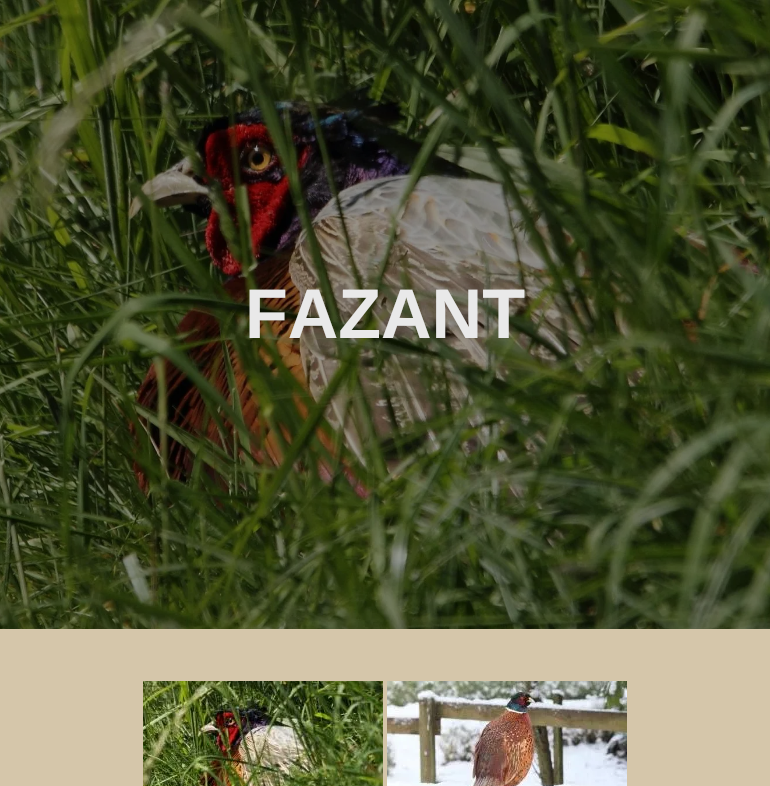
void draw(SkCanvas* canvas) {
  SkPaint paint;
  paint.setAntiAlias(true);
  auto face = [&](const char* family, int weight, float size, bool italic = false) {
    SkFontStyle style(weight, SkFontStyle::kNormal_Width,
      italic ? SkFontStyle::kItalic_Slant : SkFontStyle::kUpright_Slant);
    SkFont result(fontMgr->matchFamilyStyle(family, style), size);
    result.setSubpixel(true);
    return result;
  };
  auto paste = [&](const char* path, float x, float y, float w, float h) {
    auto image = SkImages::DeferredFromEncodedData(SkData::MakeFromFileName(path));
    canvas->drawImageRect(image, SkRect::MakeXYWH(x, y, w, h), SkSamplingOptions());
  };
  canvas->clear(0xffd5c6aa);
  paste("img/1.png", 0, 0, 770, 629);
  paste("img/2.png", 143, 681, 240, 105);
  paste("img/3.png", 387, 681, 240, 105);
  auto f0 = face("Liberation Sans", 700, 70);
  paint.setColor(0xffe9e9e9);
  canvas->drawString("FAZANT", 245, 338, f0, paint);
}
